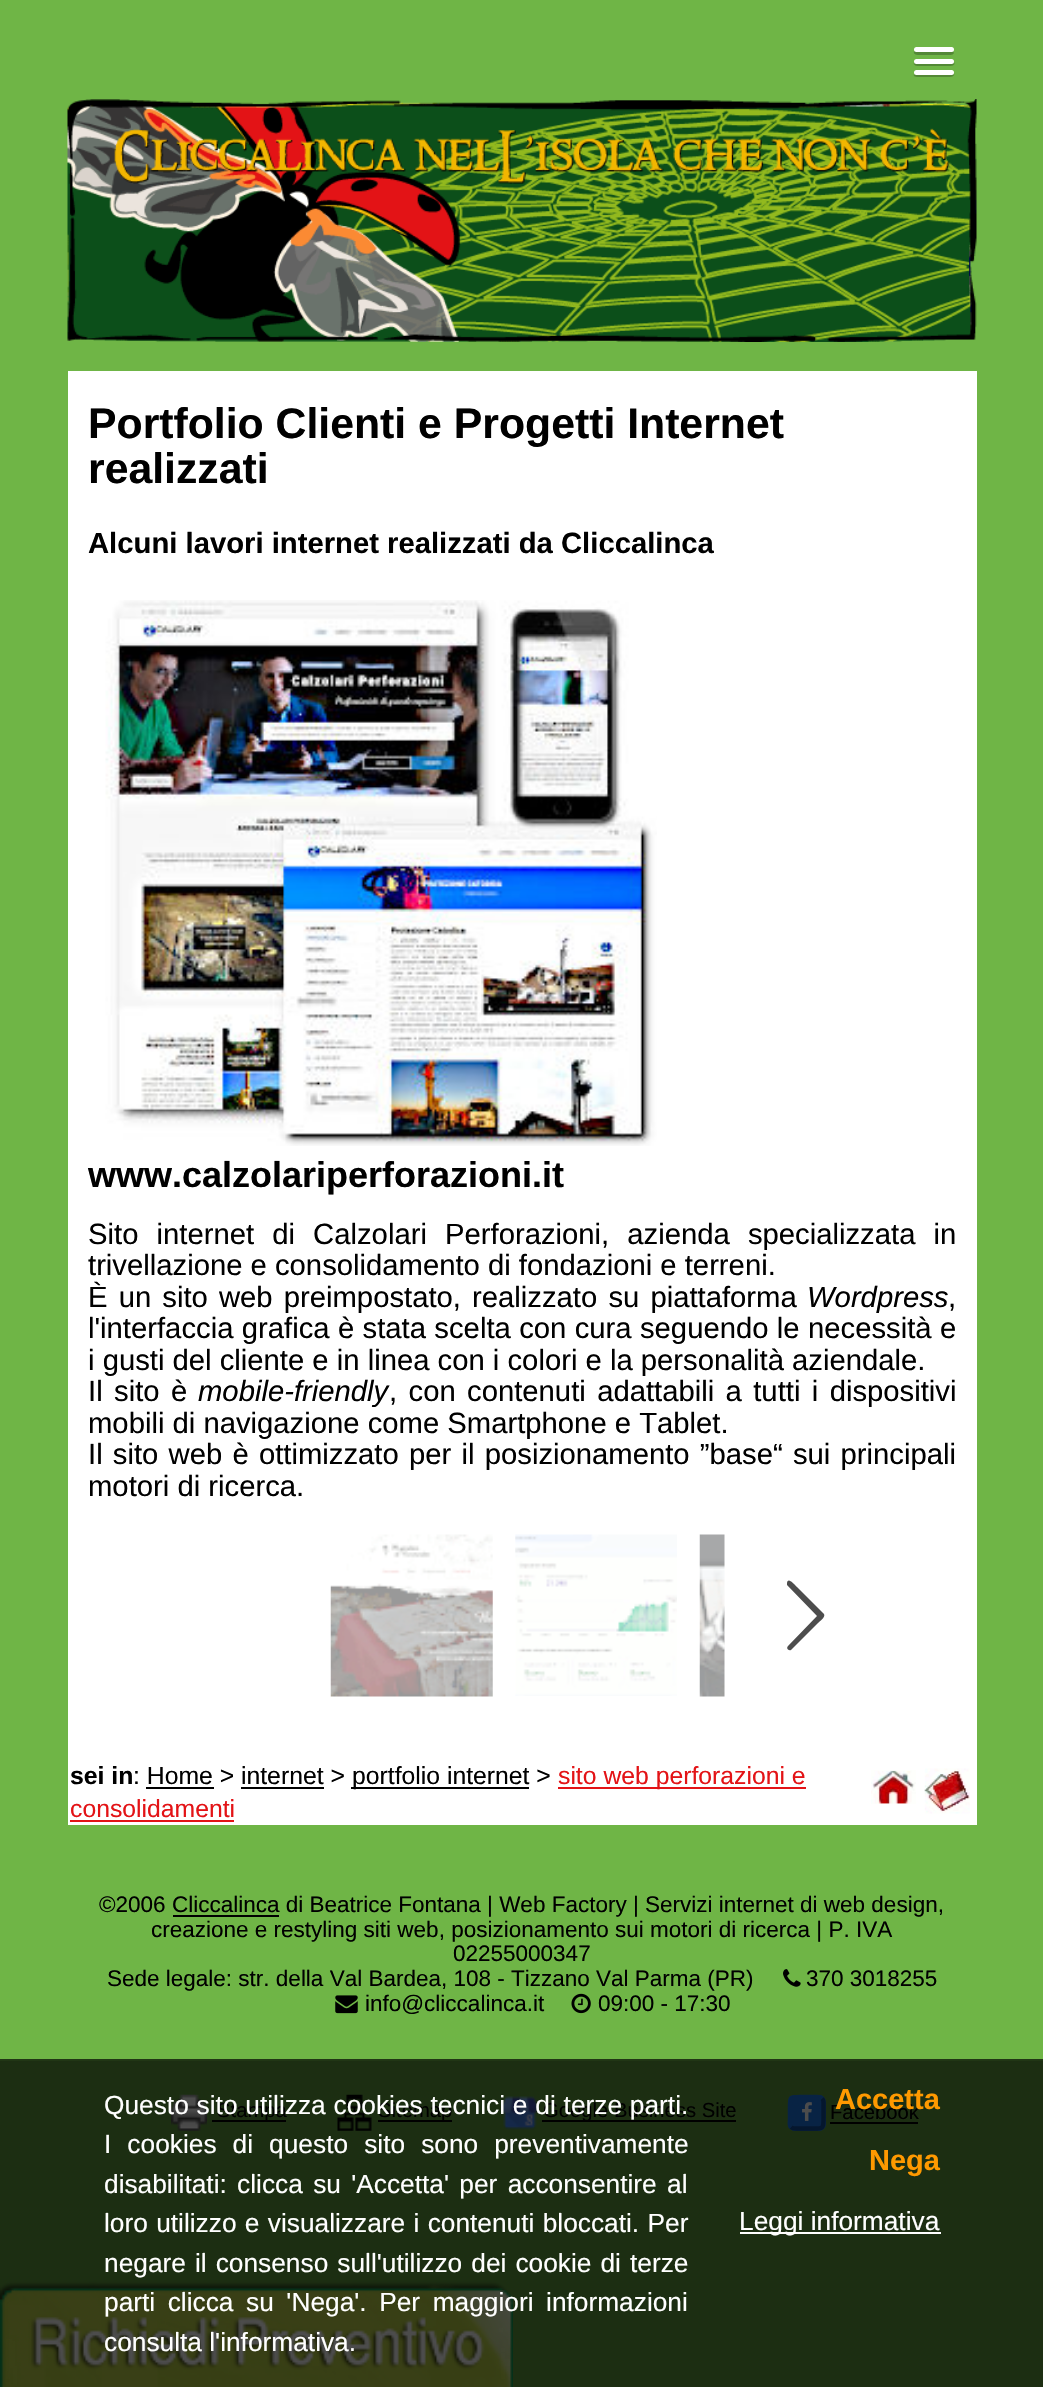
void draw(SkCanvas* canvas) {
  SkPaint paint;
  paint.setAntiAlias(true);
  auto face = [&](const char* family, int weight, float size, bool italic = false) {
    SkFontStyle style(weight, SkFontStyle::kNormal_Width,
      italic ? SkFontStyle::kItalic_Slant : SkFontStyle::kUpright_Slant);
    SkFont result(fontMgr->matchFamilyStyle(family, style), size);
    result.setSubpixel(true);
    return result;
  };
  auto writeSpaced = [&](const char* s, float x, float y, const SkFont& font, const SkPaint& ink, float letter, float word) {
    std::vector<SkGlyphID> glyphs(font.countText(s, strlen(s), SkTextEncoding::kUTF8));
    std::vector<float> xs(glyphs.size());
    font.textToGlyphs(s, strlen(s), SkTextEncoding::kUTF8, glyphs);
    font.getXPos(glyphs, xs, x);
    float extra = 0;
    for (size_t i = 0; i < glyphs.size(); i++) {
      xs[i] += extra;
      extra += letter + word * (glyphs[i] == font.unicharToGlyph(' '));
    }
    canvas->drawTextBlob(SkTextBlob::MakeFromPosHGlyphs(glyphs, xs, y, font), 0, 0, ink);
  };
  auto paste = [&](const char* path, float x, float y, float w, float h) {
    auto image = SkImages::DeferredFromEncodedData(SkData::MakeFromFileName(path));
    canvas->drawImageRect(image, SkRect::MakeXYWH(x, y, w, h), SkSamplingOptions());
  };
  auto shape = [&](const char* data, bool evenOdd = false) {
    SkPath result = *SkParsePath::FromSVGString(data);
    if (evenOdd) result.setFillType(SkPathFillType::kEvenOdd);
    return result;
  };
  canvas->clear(0xff1c2e12);
  paint.setColor(0xff6fb546);
  canvas->drawRect(SkRect::MakeXYWH(0, 0, 1043, 2059), paint);
  paint.setColor(0xff213615);
  canvas->drawRect(SkRect::MakeXYWH(0, 2059, 1043, 2), paint);
  paint.setColor(0xff538835);
  canvas->drawPath(shape("M914 51C912 56 922 55 922 55H946C946 55 957 56 953 51L952 52C949 52 916 52 914 51Z"), paint);
  paint.setColor(0xffffffff);
  canvas->drawRoundRect(SkRect::MakeXYWH(914, 47, 40, 5), 2.5f, 2.5f, paint);
  paint.setColor(0xff538835);
  canvas->drawPath(shape("M914 62C912 67 921 66 922 66H946C946 66 957 67 954 62L952 63C948 63 916 64 914 62Z"), paint);
  paint.setColor(0xffffffff);
  canvas->drawRoundRect(SkRect::MakeXYWH(914, 59, 40, 5), 2.5f, 2.5f, paint);
  paint.setColor(0xff538835);
  canvas->drawPath(shape("M914 74C912 78 921 77 922 77H946C946 77 956 78 954 73L952 74C948 75 915 75 914 74Z"), paint);
  paint.setColor(0xffffffff);
  canvas->drawRoundRect(SkRect::MakeXYWH(914, 70, 40, 5), 2.5f, 2.5f, paint);
  paste("img/1.png", 67, 99, 910, 243);
  canvas->drawRect(SkRect::MakeXYWH(68, 371, 909, 1454), paint);
  paste("img/2.png", 105, 600, 552, 546);
  paste("img/3.png", 330, 1534, 163, 163);
  paste("img/4.png", 515, 1534, 162, 162);
  paste("img/5.png", 699, 1534, 26, 163);
  paint.setColor(0xff4d4d4d);
  canvas->drawPath(shape("M788 1646C786 1648 788 1651 791 1650L818 1623C819 1622 826 1617 824 1614L797 1587C793 1583 788 1577 787 1583V1585L817 1616Z"), paint);
  {
    const struct { float x, y, w, h; SkColor color; } items[] = {
      {146, 1787, 68, 2, 0xff000000},
      {241, 1787, 83, 2, 0xff000000},
      {351, 1787, 178, 2, 0xff000000},
      {558, 1787, 248, 2, 0xffe31316},
      {70, 1820, 164, 2, 0xffe31316},
    };
    for (auto [x, y, w, h, color] : items) {
      paint.setColor(color);
      canvas->drawRect(SkRect::MakeXYWH(x, y, w, h), paint);
    }
  }
  paste("img/6.png", 871, 1770, 45, 34);
  paste("img/7.png", 924, 1768, 46, 46);
  paint.setColor(0xff000000);
  canvas->drawRect(SkRect::MakeXYWH(173, 1915, 106, 2), paint);
  paste("img/8.png", 783, 1969, 18, 18);
  paste("img/9.png", 335, 1995, 23, 19);
  paste("img/10.png", 571, 1993, 20, 21);
  paste("img/11.png", 171, 2094, 36, 37);
  canvas->drawRect(SkRect::MakeXYWH(212, 2120, 74, 2), paint);
  paste("img/12.png", 337, 2094, 35, 37);
  canvas->drawRect(SkRect::MakeXYWH(378, 2120, 74, 2), paint);
  paste("img/13.png", 501, 2096, 37, 34);
  canvas->drawRect(SkRect::MakeXYWH(542, 2120, 194, 2), paint);
  paint.setColor(0xff082344);
  canvas->drawRoundRect(SkRect::MakeXYWH(788, 2095, 38, 36), 7, 7, paint);
  paint.setStroke(true);
  paint.setStrokeWidth(4.5f);
  paint.setColor(0xff05172e);
  canvas->drawPath(shape("M822 2098.5C824 2100 823.5 2103 823.5 2105V2113C823.5 2131 825 2128.5 806.5 2128.5H798.5C796 2128.5 793 2129 791 2127"), paint);
  paint.setColor(0xff082344);
  canvas->drawPath(shape("M791 2127C789 2125.5 790 2122.5 790 2120V2113C790 2094.5 788 2097 806.5 2097H815C817.5 2097 820.5 2096.5 822 2098.5"), paint);
  paste("img/14.png", 802, 2102, 10, 19);
  paint.setStroke(false);
  paint.setColor(0xff000000);
  canvas->drawRect(SkRect::MakeXYWH(830, 2122, 88, 2), paint);
  paint.setColor(0xffffffff);
  canvas->drawRect(SkRect::MakeXYWH(740, 2232, 201, 2), paint);
  paste("img/15.png", 0, 2281, 513, 106);
  auto f0 = face("Liberation Sans", 700, 42.75f);
  paint.setColor(0xff000000);
  canvas->drawString("Portfolio Clienti e Progetti Internet", 88, 438, f0, paint);
  canvas->drawString("realizzati", 88, 483, f0, paint);
  auto f1 = face("Liberation Sans", 700, 29.25f);
  canvas->drawString("Alcuni lavori internet realizzati da Cliccalinca", 88, 553, f1, paint);
  auto f2 = face("Liberation Sans", 700, 36);
  canvas->drawString("www.calzolariperforazioni.it", 88, 1187, f2, paint);
  auto f3 = face("Liberation Sans", 400, 29.25f);
  writeSpaced("Sito internet di Calzolari Perforazioni, azienda specializzata in", 88, 1244, f3, paint, 0, 10);
  canvas->drawString("trivellazione e consolidamento di fondazioni e terreni.", 88, 1275, f3, paint);
  writeSpaced("È un sito web preimpostato, realizzato su piattaforma", 88, 1307, f3, paint, 0, 3);
  auto f4 = face("Liberation Sans", 400, 29.25f, true);
  canvas->drawString("Wordpress", 807, 1307, f4, paint);
  canvas->drawString(",", 948, 1307, f3, paint);
  writeSpaced("l'interfaccia grafica è stata scelta con cura seguendo le necessità e", 88, 1338, f3, paint, 0, 0.25f);
  canvas->drawString("i gusti del cliente e in linea con i colori e la personalità aziendale.", 88, 1370, f3, paint);
  writeSpaced("Il sito è", 88, 1401, f3, paint, 0, 3.25f);
  canvas->drawString("mobile-friendly", 198, 1401, f4, paint);
  writeSpaced(", con contenuti adattabili a tutti i dispositivi", 389, 1401, f3, paint, 0, 3.25f);
  canvas->drawString("mobili di navigazione come Smartphone e Tablet.", 88, 1433, f3, paint);
  writeSpaced("Il sito web è ottimizzato per il posizionamento ”base“ sui principali", 88, 1464, f3, paint, 0, 2.1f);
  canvas->drawString("motori di ricerca.", 88, 1496, f3, paint);
  auto f5 = face("Liberation Sans", 700, 24.75f);
  canvas->drawString("sei in", 70, 1784, f5, paint);
  auto f6 = face("Liberation Sans", 400, 24.75f);
  canvas->drawString(": Home > internet >", 133, 1784, f6, paint);
  canvas->drawString("portfolio internet >", 352, 1784, f6, paint);
  paint.setColor(0xffe31316);
  canvas->drawString("sito web perforazioni e", 558, 1784, f6, paint);
  canvas->drawString("consolidamenti", 70, 1817, f6, paint);
  auto f7 = face("Liberation Sans", 400, 22.5f);
  paint.setColor(0xff000000);
  {
    const struct { const char* s; float x, y; } items[] = {
      {"©2006 Cliccalinca di Beatrice Fontana | Web Factory | Servizi internet di web design,", 99, 1912},
      {"creazione e restyling siti web, posizionamento sui motori di ricerca | P. IVA", 151, 1937},
      {"02255000347", 453, 1961},
      {"Sede legale: str. della Val Bardea, 108 - Tizzano Val Parma (PR)", 107, 1986},
      {"370 3018255", 806, 1986},
      {"info@cliccalinca.it", 365, 2011},
      {"09:00 - 17:30", 598, 2011},
    };
    for (auto [s, x, y] : items) {
      canvas->drawString(s, x, y, f7, paint);
    }
  }
  auto f8 = face("Liberation Sans", 400, 20.25f);
  {
    const struct { const char* s; float x, y; } items[] = {
      {"Stampa", 217, 2117},
      {"Sitemap", 378, 2117},
      {"Google Business Site", 543, 2117},
      {"Facebook", 830, 2119},
    };
    for (auto [s, x, y] : items) {
      canvas->drawString(s, x, y, f8, paint);
    }
  }
  auto f9 = face("Liberation Sans", 400, 26.3f);
  paint.setColor(0xffffffff);
  writeSpaced("Questo sito utilizza cookies tecnici e di terze parti.", 104, 2114, f9, paint, 0, 0.5f);
  writeSpaced("I cookies di questo sito sono preventivamente", 104, 2153, f9, paint, 0, 8.75f);
  writeSpaced("disabilitati: clicca su 'Accetta' per acconsentire al", 104, 2193, f9, paint, 0, 3);
  writeSpaced("loro utilizzo e visualizzare i contenuti bloccati. Per", 104, 2232, f9, paint, 0, 1);
  writeSpaced("negare il consenso sull'utilizzo dei cookie di terze", 104, 2272, f9, paint, 0, 1.75f);
  writeSpaced("parti clicca su 'Nega'. Per maggiori informazioni", 104, 2311, f9, paint, 0, 5.25f);
  canvas->drawString("consulta l'informativa.", 104, 2351, f9, paint);
  auto f10 = face("Liberation Sans", 700, 29);
  paint.setColor(0xffff9900);
  canvas->drawString("Accetta", 835, 2109, f10, paint);
  canvas->drawString("Nega", 869, 2170, f10, paint);
  paint.setColor(0xffffffff);
  canvas->drawString("Leggi informativa", 739, 2230, f9, paint);
}
